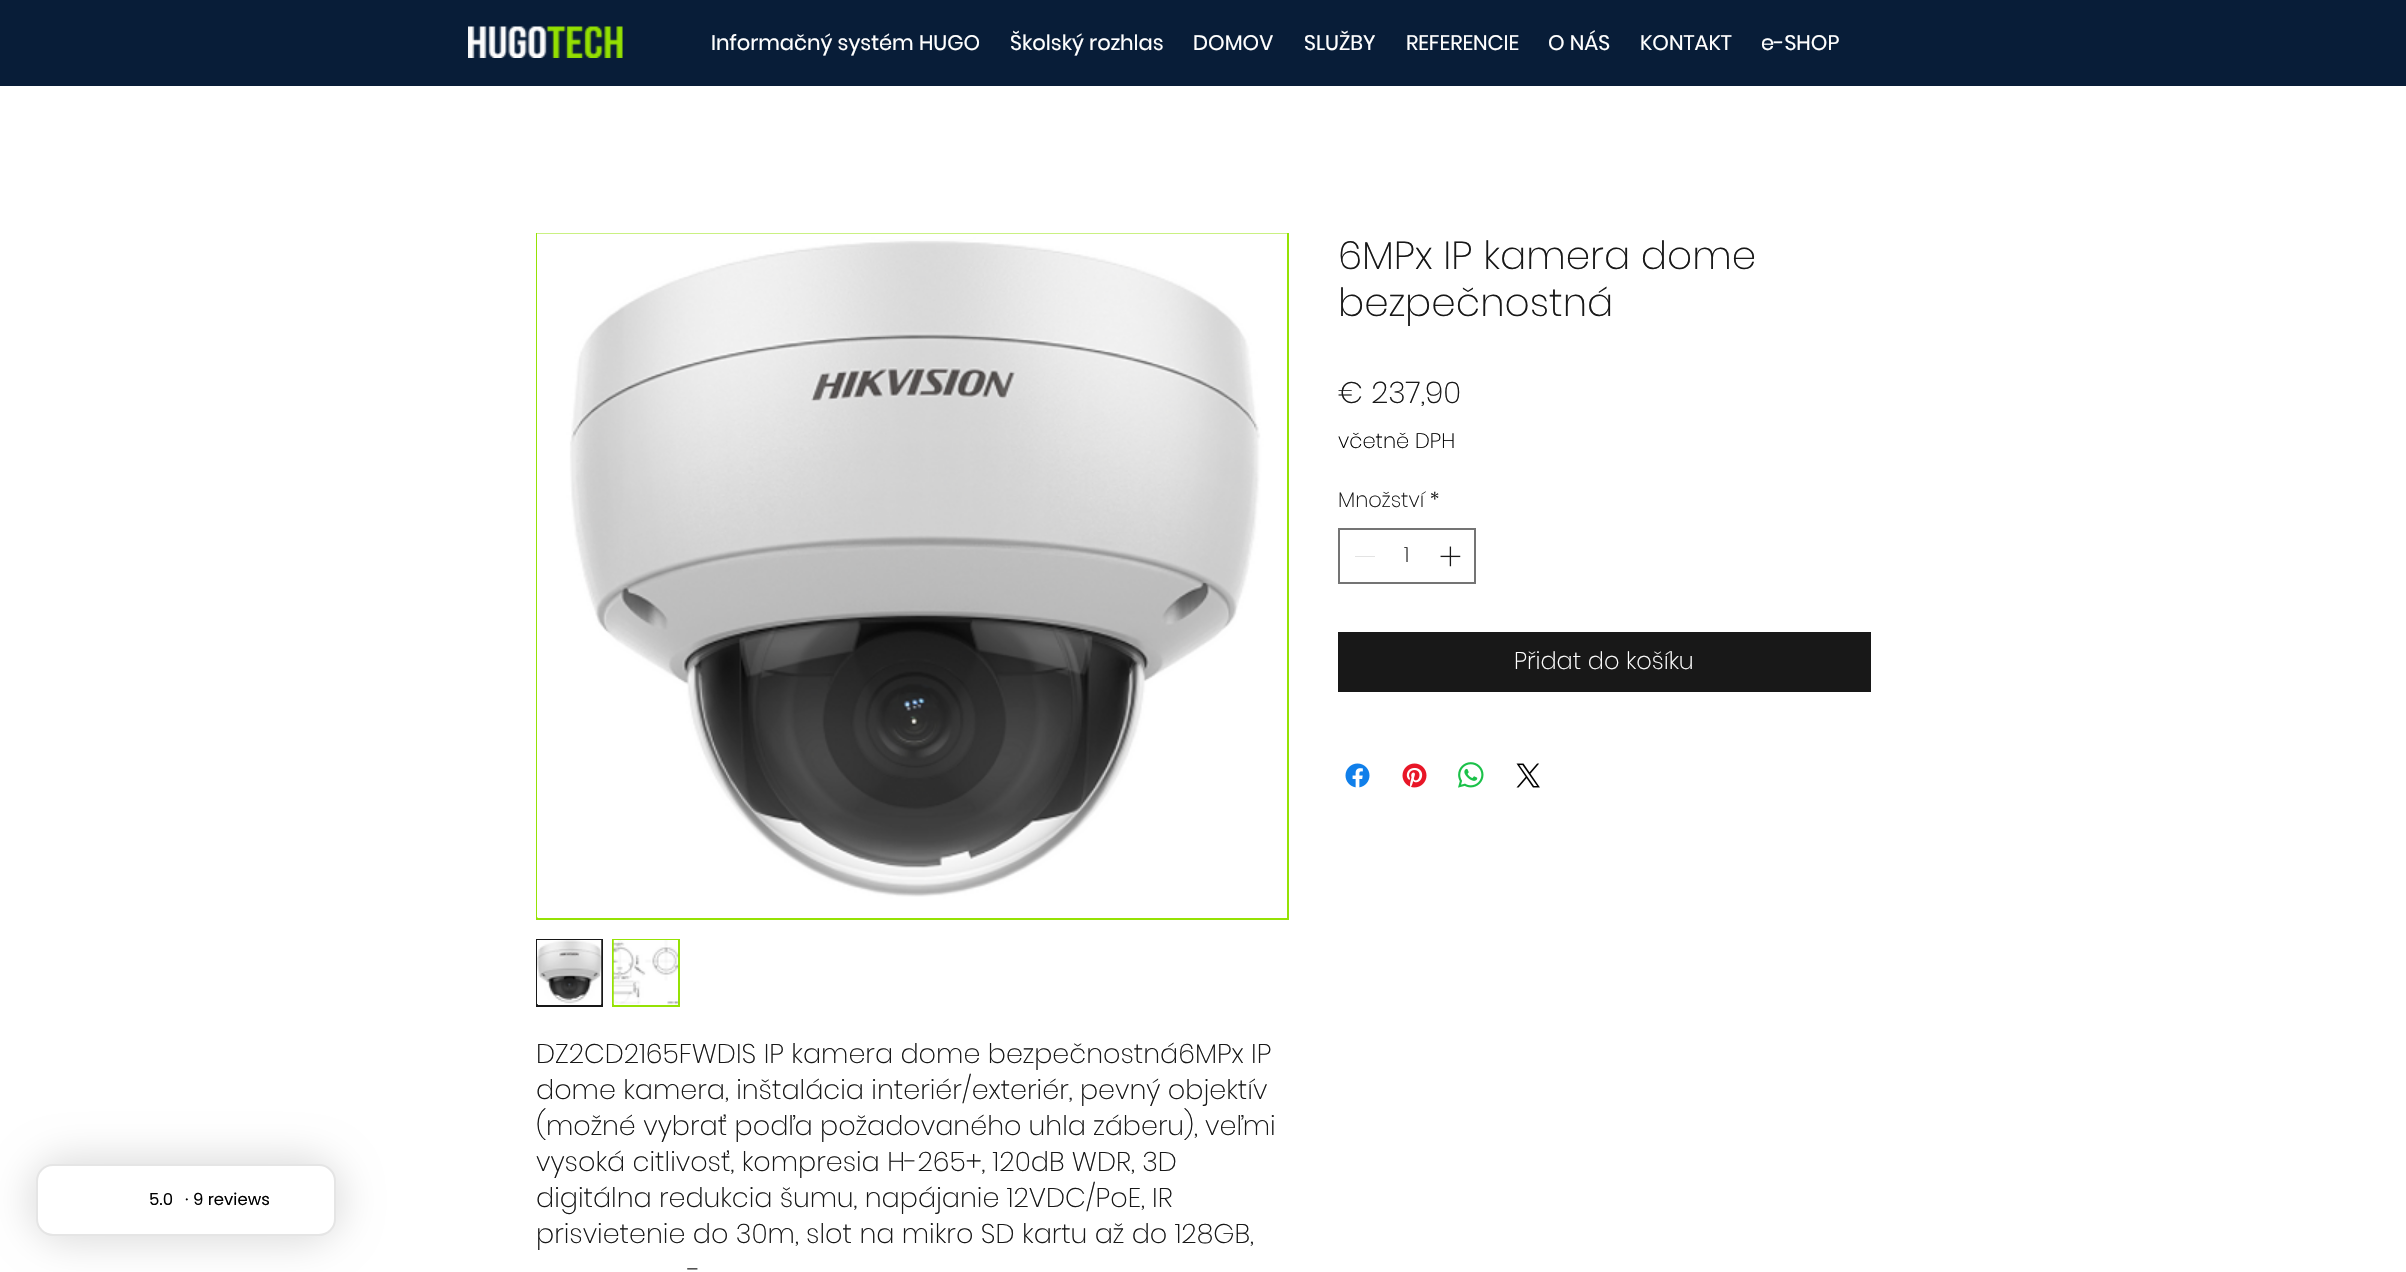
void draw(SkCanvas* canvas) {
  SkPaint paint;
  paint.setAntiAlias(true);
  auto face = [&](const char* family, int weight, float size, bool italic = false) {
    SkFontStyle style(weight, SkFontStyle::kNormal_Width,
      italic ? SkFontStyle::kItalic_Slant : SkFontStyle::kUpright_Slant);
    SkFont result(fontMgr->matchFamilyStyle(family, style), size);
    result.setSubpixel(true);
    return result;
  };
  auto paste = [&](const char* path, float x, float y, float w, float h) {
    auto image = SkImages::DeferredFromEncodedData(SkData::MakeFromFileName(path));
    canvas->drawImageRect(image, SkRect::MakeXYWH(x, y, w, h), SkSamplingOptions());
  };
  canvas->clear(0xffffffff);
  paint.setColor(0x1f000000);
  paint.setMaskFilter(SkMaskFilter::MakeBlur(kNormal_SkBlurStyle, 18));
  canvas->drawRoundRect(SkRect::MakeXYWH(27, 1155, 318, 90), 45, 45, paint);
  paint.setMaskFilter(nullptr);
  paint.setColor(0xffffffff);
  canvas->drawRoundRect(SkRect::MakeXYWH(37, 1165, 298, 70), 16, 16, paint);
  paint.setStroke(true);
  paint.setStrokeWidth(2);
  paint.setColor(0xffe5e5e5);
  canvas->drawRoundRect(SkRect::MakeXYWH(37, 1165, 298, 70), 16, 16, paint);
  paint.setStroke(false);
  paint.setColor(0xff081d38);
  canvas->drawRect(SkRect::MakeXYWH(0, 0, 2406, 86), paint);
  paste("img/1.png", 468, 26, 155, 32);
  paint.setStroke(true);
  paint.setColor(0xff747474);
  canvas->drawRect(SkRect::MakeXYWH(1339, 529, 136, 54), paint);
  paint.setStroke(false);
  paint.setColor(0xffe3e3e3);
  canvas->drawRect(SkRect::MakeXYWH(1355, 556, 20, 1), paint);
  paste("img/2.png", 1440, 546, 21, 21);
  paint.setColor(0xff181818);
  canvas->drawRect(SkRect::MakeXYWH(1338, 632, 533, 60), paint);
  paste("img/3.png", 1345, 763, 25, 25);
  paste("img/4.png", 1402, 763, 25, 25);
  paste("img/5.png", 1458, 762, 26, 26);
  paste("img/6.png", 1516, 763, 24, 25);
  paint.setStroke(true);
  paint.setColor(0xff95e204);
  canvas->drawRect(SkRect::MakeXYWH(537, 234, 751, 685), paint);
  paste("img/7.png", 537, 233, 750, 685);
  paint.setColor(0xff181818);
  canvas->drawRect(SkRect::MakeXYWH(537, 940, 65, 66), paint);
  paste("img/8.png", 537, 940, 65, 65);
  paint.setColor(0xff95e204);
  canvas->drawRect(SkRect::MakeXYWH(613, 940, 66, 66), paint);
  paste("img/9.png", 613, 940, 65, 65);
  auto f0 = face("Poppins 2", 400, 16.5f);
  paint.setStroke(false);
  paint.setColor(0xff000000);
  canvas->drawString("5.0", 149, 1205, f0, paint);
  canvas->drawString("· 9 reviews", 185, 1205, f0, paint);
  auto f1 = face("Poppins", 400, 21);
  paint.setColor(0xffffffff);
  {
    const struct { const char* s; float x, y; } items[] = {
      {"Informačný systém HUGO", 711, 50},
      {"Školský rozhlas", 1010, 50},
      {"DOMOV", 1193, 50},
      {"SLUŽBY", 1304, 50},
      {"REFERENCIE", 1406, 50},
      {"O NÁS", 1548, 50},
      {"KONTAKT", 1640, 50},
      {"e-SHOP", 1761, 50},
    };
    for (auto [s, x, y] : items) {
      canvas->drawString(s, x, y, f1, paint);
    }
  }
  auto f2 = face("Poppins", 200, 39);
  paint.setColor(0xff181818);
  canvas->drawString("6MPx IP kamera dome", 1338, 269, f2, paint);
  canvas->drawString("bezpečnostná", 1338, 316, f2, paint);
  auto f3 = face("Poppins", 200, 30);
  canvas->drawString("€ 237,90", 1338, 403, f3, paint);
  auto f4 = face("Poppins", 200, 21);
  paint.setColor(0xff000000);
  canvas->drawString("včetně DPH", 1338, 448, f4, paint);
  paint.setColor(0xff181818);
  canvas->drawString("Množství *", 1338, 507, f4, paint);
  canvas->drawString("1", 1404, 562, f4, paint);
  auto f5 = face("Poppins", 200, 24);
  paint.setColor(0xffffffff);
  canvas->drawString("Přidat do košíku", 1514, 669, f5, paint);
  auto f6 = face("Poppins", 200, 27);
  paint.setColor(0xff181818);
  {
    const struct { const char* s; float x, y; } items[] = {
      {"DZ2CD2165FWDIS IP kamera dome bezpečnostná6MPx IP", 536, 1063},
      {"dome kamera, inštalácia interiér/exteriér, pevný objektív", 536, 1099},
      {"(možné vybrať podľa požadovaného uhla záberu), veľmi", 536, 1135},
      {"vysoká citlivosť, kompresia H-265+, 120dB WDR, 3D", 536, 1171},
      {"digitálna redukcia šumu, napájanie 12VDC/PoE, IR", 536, 1207},
      {"prisvietenie do 30m, slot na mikro SD kartu až do 128GB,", 536, 1243},
      {"-", 688, 1279},
    };
    for (auto [s, x, y] : items) {
      canvas->drawString(s, x, y, f6, paint);
    }
  }
}
